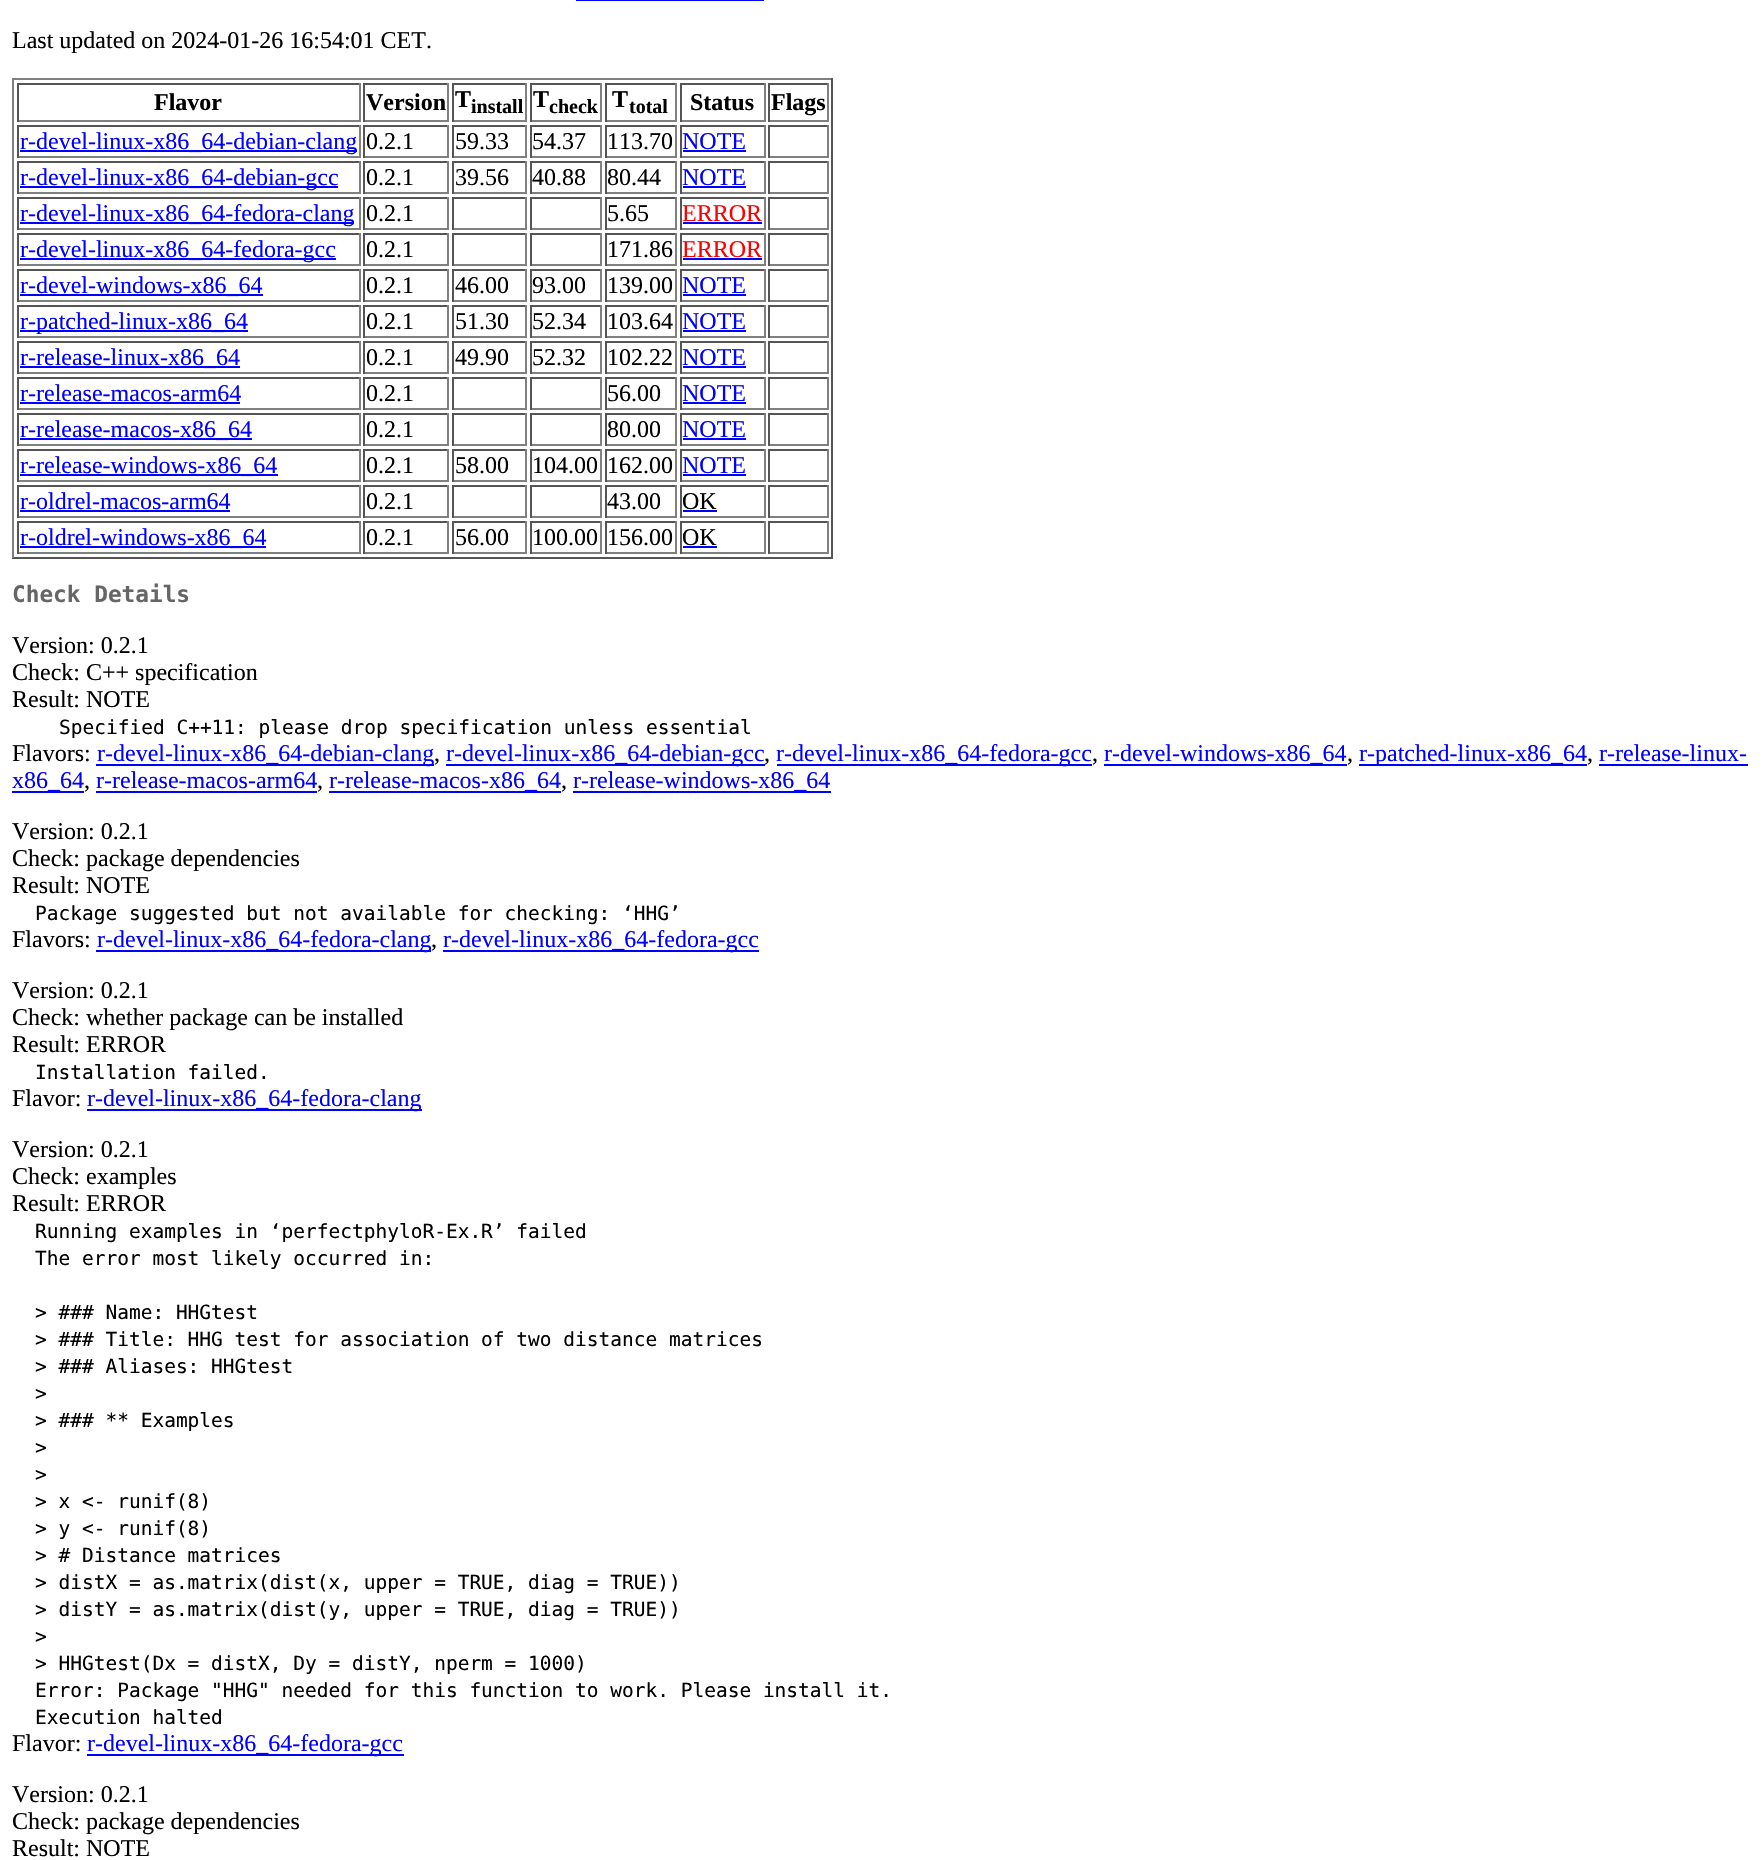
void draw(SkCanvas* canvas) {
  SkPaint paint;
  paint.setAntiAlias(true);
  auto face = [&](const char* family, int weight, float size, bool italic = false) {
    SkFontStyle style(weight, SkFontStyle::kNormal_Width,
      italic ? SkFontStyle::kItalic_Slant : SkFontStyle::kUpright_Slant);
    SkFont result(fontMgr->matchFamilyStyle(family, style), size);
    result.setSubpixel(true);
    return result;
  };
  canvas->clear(0xffffffff);
  {
    const struct { float x, y, w, h; SkColor color; } items[] = {
      {576, 0, 188, 1, 0xff0000ff},
      {12, 78, 821, 2, 0xff808080},
      {831, 78, 2, 480, 0xff555555},
      {12, 557, 821, 2, 0xff555555},
      {12, 78, 2, 480, 0xff808080},
      {17, 83, 343, 2, 0xff555555},
      {359, 83, 2, 39, 0xff808080},
      {17, 120, 343, 2, 0xff808080},
      {17, 83, 2, 39, 0xff555555},
      {363, 83, 86, 2, 0xff555555},
      {447, 83, 2, 39, 0xff808080},
      {363, 120, 86, 2, 0xff808080},
      {363, 83, 2, 39, 0xff555555},
      {452, 83, 75, 2, 0xff555555},
      {525, 83, 2, 39, 0xff808080},
      {452, 120, 75, 2, 0xff808080},
      {452, 83, 2, 39, 0xff555555},
      {530, 83, 72, 2, 0xff555555},
      {600, 83, 2, 39, 0xff808080},
      {530, 120, 72, 2, 0xff808080},
      {530, 83, 2, 39, 0xff555555},
      {605, 83, 72, 2, 0xff555555},
      {675, 83, 2, 39, 0xff808080},
      {605, 120, 72, 2, 0xff808080},
      {605, 83, 2, 39, 0xff555555},
      {680, 83, 85, 2, 0xff555555},
      {764, 83, 2, 39, 0xff808080},
      {680, 120, 85, 2, 0xff808080},
      {680, 83, 2, 39, 0xff555555},
      {768, 83, 60, 2, 0xff555555},
      {827, 83, 2, 39, 0xff808080},
      {768, 120, 60, 2, 0xff808080},
      {768, 83, 2, 39, 0xff555555},
      {17, 125, 343, 2, 0xff555555},
      {359, 125, 2, 33, 0xff808080},
      {17, 156, 343, 2, 0xff808080},
      {17, 125, 2, 33, 0xff555555},
      {20, 150, 337, 2, 0xff0000ff},
      {363, 125, 86, 2, 0xff555555},
      {447, 125, 2, 33, 0xff808080},
      {363, 156, 86, 2, 0xff808080},
      {363, 125, 2, 33, 0xff555555},
      {452, 125, 75, 2, 0xff555555},
      {525, 125, 2, 33, 0xff808080},
      {452, 156, 75, 2, 0xff808080},
      {452, 125, 2, 33, 0xff555555},
      {530, 125, 72, 2, 0xff555555},
      {600, 125, 2, 33, 0xff808080},
      {530, 156, 72, 2, 0xff808080},
      {530, 125, 2, 33, 0xff555555},
      {605, 125, 72, 2, 0xff555555},
      {675, 125, 2, 33, 0xff808080},
      {605, 156, 72, 2, 0xff808080},
      {605, 125, 2, 33, 0xff555555},
      {680, 125, 85, 2, 0xff555555},
      {764, 125, 2, 33, 0xff808080},
      {680, 156, 85, 2, 0xff808080},
      {680, 125, 2, 33, 0xff555555},
      {683, 150, 63, 2, 0xff0000ff},
      {768, 125, 60, 2, 0xff555555},
      {827, 125, 2, 33, 0xff808080},
      {768, 156, 60, 2, 0xff808080},
      {768, 125, 2, 33, 0xff555555},
      {17, 161, 343, 2, 0xff555555},
      {359, 161, 2, 33, 0xff808080},
      {17, 192, 343, 2, 0xff808080},
      {17, 161, 2, 33, 0xff555555},
      {20, 186, 318, 2, 0xff0000ff},
      {363, 161, 86, 2, 0xff555555},
      {447, 161, 2, 33, 0xff808080},
      {363, 192, 86, 2, 0xff808080},
      {363, 161, 2, 33, 0xff555555},
      {452, 161, 75, 2, 0xff555555},
      {525, 161, 2, 33, 0xff808080},
      {452, 192, 75, 2, 0xff808080},
      {452, 161, 2, 33, 0xff555555},
      {530, 161, 72, 2, 0xff555555},
      {600, 161, 2, 33, 0xff808080},
      {530, 192, 72, 2, 0xff808080},
      {530, 161, 2, 33, 0xff555555},
      {605, 161, 72, 2, 0xff555555},
      {675, 161, 2, 33, 0xff808080},
      {605, 192, 72, 2, 0xff808080},
      {605, 161, 2, 33, 0xff555555},
      {680, 161, 85, 2, 0xff555555},
      {764, 161, 2, 33, 0xff808080},
      {680, 192, 85, 2, 0xff808080},
      {680, 161, 2, 33, 0xff555555},
      {683, 186, 63, 2, 0xff0000ff},
      {768, 161, 60, 2, 0xff555555},
      {827, 161, 2, 33, 0xff808080},
      {768, 192, 60, 2, 0xff808080},
      {768, 161, 2, 33, 0xff555555},
      {17, 197, 343, 2, 0xff555555},
      {359, 197, 2, 33, 0xff808080},
      {17, 228, 343, 2, 0xff808080},
      {17, 197, 2, 33, 0xff555555},
      {20, 222, 334, 2, 0xff0000ff},
      {363, 197, 86, 2, 0xff555555},
      {447, 197, 2, 33, 0xff808080},
      {363, 228, 86, 2, 0xff808080},
      {363, 197, 2, 33, 0xff555555},
      {452, 197, 75, 2, 0xff555555},
      {525, 197, 2, 33, 0xff808080},
      {452, 228, 75, 2, 0xff808080},
      {452, 197, 2, 33, 0xff555555},
      {530, 197, 72, 2, 0xff555555},
      {600, 197, 2, 33, 0xff808080},
      {530, 228, 72, 2, 0xff808080},
      {530, 197, 2, 33, 0xff555555},
      {605, 197, 72, 2, 0xff555555},
      {675, 197, 2, 33, 0xff808080},
      {605, 228, 72, 2, 0xff808080},
      {605, 197, 2, 33, 0xff555555},
      {680, 197, 85, 2, 0xff555555},
      {764, 197, 2, 33, 0xff808080},
      {680, 228, 85, 2, 0xff808080},
      {680, 197, 2, 33, 0xff555555},
      {683, 222, 79, 2, 0xff0000ff},
      {768, 197, 60, 2, 0xff555555},
      {827, 197, 2, 33, 0xff808080},
      {768, 228, 60, 2, 0xff808080},
      {768, 197, 2, 33, 0xff555555},
      {17, 233, 343, 2, 0xff555555},
      {359, 233, 2, 33, 0xff808080},
      {17, 264, 343, 2, 0xff808080},
      {17, 233, 2, 33, 0xff555555},
      {20, 258, 316, 2, 0xff0000ff},
      {363, 233, 86, 2, 0xff555555},
      {447, 233, 2, 33, 0xff808080},
      {363, 264, 86, 2, 0xff808080},
      {363, 233, 2, 33, 0xff555555},
      {452, 233, 75, 2, 0xff555555},
      {525, 233, 2, 33, 0xff808080},
      {452, 264, 75, 2, 0xff808080},
      {452, 233, 2, 33, 0xff555555},
      {530, 233, 72, 2, 0xff555555},
      {600, 233, 2, 33, 0xff808080},
      {530, 264, 72, 2, 0xff808080},
      {530, 233, 2, 33, 0xff555555},
      {605, 233, 72, 2, 0xff555555},
      {675, 233, 2, 33, 0xff808080},
      {605, 264, 72, 2, 0xff808080},
      {605, 233, 2, 33, 0xff555555},
      {680, 233, 85, 2, 0xff555555},
      {764, 233, 2, 33, 0xff808080},
      {680, 264, 85, 2, 0xff808080},
      {680, 233, 2, 33, 0xff555555},
      {683, 258, 79, 2, 0xff0000ff},
      {768, 233, 60, 2, 0xff555555},
      {827, 233, 2, 33, 0xff808080},
      {768, 264, 60, 2, 0xff808080},
      {768, 233, 2, 33, 0xff555555},
      {17, 269, 343, 2, 0xff555555},
      {359, 269, 2, 33, 0xff808080},
      {17, 300, 343, 2, 0xff808080},
      {17, 269, 2, 33, 0xff555555},
      {20, 294, 243, 2, 0xff0000ff},
      {363, 269, 86, 2, 0xff555555},
      {447, 269, 2, 33, 0xff808080},
      {363, 300, 86, 2, 0xff808080},
      {363, 269, 2, 33, 0xff555555},
      {452, 269, 75, 2, 0xff555555},
      {525, 269, 2, 33, 0xff808080},
      {452, 300, 75, 2, 0xff808080},
      {452, 269, 2, 33, 0xff555555},
      {530, 269, 72, 2, 0xff555555},
      {600, 269, 2, 33, 0xff808080},
      {530, 300, 72, 2, 0xff808080},
      {530, 269, 2, 33, 0xff555555},
      {605, 269, 72, 2, 0xff555555},
      {675, 269, 2, 33, 0xff808080},
      {605, 300, 72, 2, 0xff808080},
      {605, 269, 2, 33, 0xff555555},
      {680, 269, 85, 2, 0xff555555},
      {764, 269, 2, 33, 0xff808080},
      {680, 300, 85, 2, 0xff808080},
      {680, 269, 2, 33, 0xff555555},
      {683, 294, 63, 2, 0xff0000ff},
      {768, 269, 60, 2, 0xff555555},
      {827, 269, 2, 33, 0xff808080},
      {768, 300, 60, 2, 0xff808080},
      {768, 269, 2, 33, 0xff555555},
      {17, 305, 343, 2, 0xff555555},
      {359, 305, 2, 33, 0xff808080},
      {17, 336, 343, 2, 0xff808080},
      {17, 305, 2, 33, 0xff555555},
      {20, 330, 228, 2, 0xff0000ff},
      {363, 305, 86, 2, 0xff555555},
      {447, 305, 2, 33, 0xff808080},
      {363, 336, 86, 2, 0xff808080},
      {363, 305, 2, 33, 0xff555555},
      {452, 305, 75, 2, 0xff555555},
      {525, 305, 2, 33, 0xff808080},
      {452, 336, 75, 2, 0xff808080},
      {452, 305, 2, 33, 0xff555555},
      {530, 305, 72, 2, 0xff555555},
      {600, 305, 2, 33, 0xff808080},
      {530, 336, 72, 2, 0xff808080},
      {530, 305, 2, 33, 0xff555555},
      {605, 305, 72, 2, 0xff555555},
      {675, 305, 2, 33, 0xff808080},
      {605, 336, 72, 2, 0xff808080},
      {605, 305, 2, 33, 0xff555555},
      {680, 305, 85, 2, 0xff555555},
      {764, 305, 2, 33, 0xff808080},
      {680, 336, 85, 2, 0xff808080},
      {680, 305, 2, 33, 0xff555555},
      {683, 330, 63, 2, 0xff0000ff},
      {768, 305, 60, 2, 0xff555555},
      {827, 305, 2, 33, 0xff808080},
      {768, 336, 60, 2, 0xff808080},
      {768, 305, 2, 33, 0xff555555},
      {17, 341, 343, 2, 0xff555555},
      {359, 341, 2, 33, 0xff808080},
      {17, 372, 343, 2, 0xff808080},
      {17, 341, 2, 33, 0xff555555},
      {20, 366, 220, 2, 0xff0000ff},
      {363, 341, 86, 2, 0xff555555},
      {447, 341, 2, 33, 0xff808080},
      {363, 372, 86, 2, 0xff808080},
      {363, 341, 2, 33, 0xff555555},
      {452, 341, 75, 2, 0xff555555},
      {525, 341, 2, 33, 0xff808080},
      {452, 372, 75, 2, 0xff808080},
      {452, 341, 2, 33, 0xff555555},
      {530, 341, 72, 2, 0xff555555},
      {600, 341, 2, 33, 0xff808080},
      {530, 372, 72, 2, 0xff808080},
      {530, 341, 2, 33, 0xff555555},
      {605, 341, 72, 2, 0xff555555},
      {675, 341, 2, 33, 0xff808080},
      {605, 372, 72, 2, 0xff808080},
      {605, 341, 2, 33, 0xff555555},
      {680, 341, 85, 2, 0xff555555},
      {764, 341, 2, 33, 0xff808080},
      {680, 372, 85, 2, 0xff808080},
      {680, 341, 2, 33, 0xff555555},
      {683, 366, 63, 2, 0xff0000ff},
      {768, 341, 60, 2, 0xff555555},
      {827, 341, 2, 33, 0xff808080},
      {768, 372, 60, 2, 0xff808080},
      {768, 341, 2, 33, 0xff555555},
      {17, 377, 343, 2, 0xff555555},
      {359, 377, 2, 33, 0xff808080},
      {17, 408, 343, 2, 0xff808080},
      {17, 377, 2, 33, 0xff555555},
      {20, 402, 220, 2, 0xff0000ff},
      {363, 377, 86, 2, 0xff555555},
      {447, 377, 2, 33, 0xff808080},
      {363, 408, 86, 2, 0xff808080},
      {363, 377, 2, 33, 0xff555555},
      {452, 377, 75, 2, 0xff555555},
      {525, 377, 2, 33, 0xff808080},
      {452, 408, 75, 2, 0xff808080},
      {452, 377, 2, 33, 0xff555555},
      {530, 377, 72, 2, 0xff555555},
      {600, 377, 2, 33, 0xff808080},
      {530, 408, 72, 2, 0xff808080},
      {530, 377, 2, 33, 0xff555555},
      {605, 377, 72, 2, 0xff555555},
      {675, 377, 2, 33, 0xff808080},
      {605, 408, 72, 2, 0xff808080},
      {605, 377, 2, 33, 0xff555555},
      {680, 377, 85, 2, 0xff555555},
      {764, 377, 2, 33, 0xff808080},
      {680, 408, 85, 2, 0xff808080},
      {680, 377, 2, 33, 0xff555555},
      {683, 402, 63, 2, 0xff0000ff},
      {768, 377, 60, 2, 0xff555555},
      {827, 377, 2, 33, 0xff808080},
      {768, 408, 60, 2, 0xff808080},
      {768, 377, 2, 33, 0xff555555},
      {17, 413, 343, 2, 0xff555555},
      {359, 413, 2, 33, 0xff808080},
      {17, 444, 343, 2, 0xff808080},
      {17, 413, 2, 33, 0xff555555},
      {20, 438, 232, 2, 0xff0000ff},
      {363, 413, 86, 2, 0xff555555},
      {447, 413, 2, 33, 0xff808080},
      {363, 444, 86, 2, 0xff808080},
      {363, 413, 2, 33, 0xff555555},
      {452, 413, 75, 2, 0xff555555},
      {525, 413, 2, 33, 0xff808080},
      {452, 444, 75, 2, 0xff808080},
      {452, 413, 2, 33, 0xff555555},
      {530, 413, 72, 2, 0xff555555},
      {600, 413, 2, 33, 0xff808080},
      {530, 444, 72, 2, 0xff808080},
      {530, 413, 2, 33, 0xff555555},
      {605, 413, 72, 2, 0xff555555},
      {675, 413, 2, 33, 0xff808080},
      {605, 444, 72, 2, 0xff808080},
      {605, 413, 2, 33, 0xff555555},
      {680, 413, 85, 2, 0xff555555},
      {764, 413, 2, 33, 0xff808080},
      {680, 444, 85, 2, 0xff808080},
      {680, 413, 2, 33, 0xff555555},
      {683, 438, 63, 2, 0xff0000ff},
      {768, 413, 60, 2, 0xff555555},
      {827, 413, 2, 33, 0xff808080},
      {768, 444, 60, 2, 0xff808080},
      {768, 413, 2, 33, 0xff555555},
      {17, 449, 343, 2, 0xff555555},
      {359, 449, 2, 33, 0xff808080},
      {17, 480, 343, 2, 0xff808080},
      {17, 449, 2, 33, 0xff555555},
      {20, 474, 258, 2, 0xff0000ff},
      {363, 449, 86, 2, 0xff555555},
      {447, 449, 2, 33, 0xff808080},
      {363, 480, 86, 2, 0xff808080},
      {363, 449, 2, 33, 0xff555555},
      {452, 449, 75, 2, 0xff555555},
      {525, 449, 2, 33, 0xff808080},
      {452, 480, 75, 2, 0xff808080},
      {452, 449, 2, 33, 0xff555555},
      {530, 449, 72, 2, 0xff555555},
      {600, 449, 2, 33, 0xff808080},
      {530, 480, 72, 2, 0xff808080},
      {530, 449, 2, 33, 0xff555555},
      {605, 449, 72, 2, 0xff555555},
      {675, 449, 2, 33, 0xff808080},
      {605, 480, 72, 2, 0xff808080},
      {605, 449, 2, 33, 0xff555555},
      {680, 449, 85, 2, 0xff555555},
      {764, 449, 2, 33, 0xff808080},
      {680, 480, 85, 2, 0xff808080},
      {680, 449, 2, 33, 0xff555555},
      {683, 474, 63, 2, 0xff0000ff},
      {768, 449, 60, 2, 0xff555555},
      {827, 449, 2, 33, 0xff808080},
      {768, 480, 60, 2, 0xff808080},
      {768, 449, 2, 33, 0xff555555},
      {17, 485, 343, 2, 0xff555555},
      {359, 485, 2, 33, 0xff808080},
      {17, 516, 343, 2, 0xff808080},
      {17, 485, 2, 33, 0xff555555},
      {20, 510, 210, 2, 0xff0000ff},
      {363, 485, 86, 2, 0xff555555},
      {447, 485, 2, 33, 0xff808080},
      {363, 516, 86, 2, 0xff808080},
      {363, 485, 2, 33, 0xff555555},
      {452, 485, 75, 2, 0xff555555},
      {525, 485, 2, 33, 0xff808080},
      {452, 516, 75, 2, 0xff808080},
      {452, 485, 2, 33, 0xff555555},
      {530, 485, 72, 2, 0xff555555},
      {600, 485, 2, 33, 0xff808080},
      {530, 516, 72, 2, 0xff808080},
      {530, 485, 2, 33, 0xff555555},
      {605, 485, 72, 2, 0xff555555},
      {675, 485, 2, 33, 0xff808080},
      {605, 516, 72, 2, 0xff808080},
      {605, 485, 2, 33, 0xff555555},
      {680, 485, 85, 2, 0xff555555},
      {764, 485, 2, 33, 0xff808080},
      {680, 516, 85, 2, 0xff808080},
      {680, 485, 2, 33, 0xff555555},
      {683, 510, 34, 2, 0xff0000ff},
      {768, 485, 60, 2, 0xff555555},
      {827, 485, 2, 33, 0xff808080},
      {768, 516, 60, 2, 0xff808080},
      {768, 485, 2, 33, 0xff555555},
      {17, 521, 343, 2, 0xff555555},
      {359, 521, 2, 33, 0xff808080},
      {17, 552, 343, 2, 0xff808080},
      {17, 521, 2, 33, 0xff555555},
      {20, 546, 246, 2, 0xff0000ff},
      {363, 521, 86, 2, 0xff555555},
      {447, 521, 2, 33, 0xff808080},
      {363, 552, 86, 2, 0xff808080},
      {363, 521, 2, 33, 0xff555555},
      {452, 521, 75, 2, 0xff555555},
      {525, 521, 2, 33, 0xff808080},
      {452, 552, 75, 2, 0xff808080},
      {452, 521, 2, 33, 0xff555555},
      {530, 521, 72, 2, 0xff555555},
      {600, 521, 2, 33, 0xff808080},
      {530, 552, 72, 2, 0xff808080},
      {530, 521, 2, 33, 0xff555555},
      {605, 521, 72, 2, 0xff555555},
      {675, 521, 2, 33, 0xff808080},
      {605, 552, 72, 2, 0xff808080},
      {605, 521, 2, 33, 0xff555555},
      {680, 521, 85, 2, 0xff555555},
      {764, 521, 2, 33, 0xff808080},
      {680, 552, 85, 2, 0xff808080},
      {680, 521, 2, 33, 0xff555555},
      {683, 546, 34, 2, 0xff0000ff},
      {768, 521, 60, 2, 0xff555555},
      {827, 521, 2, 33, 0xff808080},
      {768, 552, 60, 2, 0xff808080},
      {768, 521, 2, 33, 0xff555555},
      {96, 764, 338, 2, 0xff0000ff},
      {446, 764, 319, 2, 0xff0000ff},
      {777, 764, 315, 2, 0xff0000ff},
      {1104, 764, 243, 2, 0xff0000ff},
      {1359, 764, 228, 2, 0xff0000ff},
      {1599, 764, 149, 2, 0xff0000ff},
      {12, 791, 72, 2, 0xff0000ff},
      {96, 791, 221, 2, 0xff0000ff},
      {329, 791, 232, 2, 0xff0000ff},
      {573, 791, 258, 2, 0xff0000ff},
      {96, 950, 335, 2, 0xff0000ff},
      {443, 950, 316, 2, 0xff0000ff},
      {87, 1109, 335, 2, 0xff0000ff},
      {87, 1754, 317, 2, 0xff0000ff},
    };
    for (auto [x, y, w, h, color] : items) {
      paint.setColor(color);
      canvas->drawRect(SkRect::MakeXYWH(x, y, w, h), paint);
    }
  }
  auto f0 = face("Liberation Serif", 400, 24);
  paint.setColor(0xff000000);
  canvas->drawString("Last updated on 2024-01-26 16:54:01 CET.", 12, 48, f0, paint);
  auto f1 = face("Liberation Serif", 700, 24);
  {
    const struct { const char* s; float x, y; } items[] = {
      {"Flavor", 154, 110},
      {"Version", 366, 110},
      {"T", 455, 107},
    };
    for (auto [s, x, y] : items) {
      canvas->drawString(s, x, y, f1, paint);
    }
  }
  auto f2 = face("Liberation Serif", 700, 20);
  canvas->drawString("install", 471, 113, f2, paint);
  canvas->drawString("T", 533, 107, f1, paint);
  canvas->drawString("check", 549, 113, f2, paint);
  canvas->drawString("T", 612, 107, f1, paint);
  canvas->drawString("total", 629, 113, f2, paint);
  canvas->drawString("Status", 690, 110, f1, paint);
  canvas->drawString("Flags", 771, 110, f1, paint);
  paint.setColor(0xff0000ff);
  canvas->drawString("r-devel-linux-x86_64-debian-clang", 20, 149, f0, paint);
  paint.setColor(0xff000000);
  {
    const struct { const char* s; float x, y; } items[] = {
      {"0.2.1", 366, 149},
      {"59.33", 455, 149},
      {"54.37", 532, 149},
      {"113.70", 607, 149},
    };
    for (auto [s, x, y] : items) {
      canvas->drawString(s, x, y, f0, paint);
    }
  }
  paint.setColor(0xff0000ff);
  canvas->drawString("NOTE", 682, 149, f0, paint);
  canvas->drawString("r-devel-linux-x86_64-debian-gcc", 20, 185, f0, paint);
  paint.setColor(0xff000000);
  {
    const struct { const char* s; float x, y; } items[] = {
      {"0.2.1", 366, 185},
      {"39.56", 455, 185},
      {"40.88", 532, 185},
      {"80.44", 607, 185},
    };
    for (auto [s, x, y] : items) {
      canvas->drawString(s, x, y, f0, paint);
    }
  }
  paint.setColor(0xff0000ff);
  canvas->drawString("NOTE", 682, 185, f0, paint);
  canvas->drawString("r-devel-linux-x86_64-fedora-clang", 20, 221, f0, paint);
  paint.setColor(0xff000000);
  canvas->drawString("0.2.1", 366, 221, f0, paint);
  canvas->drawString("5.65", 607, 221, f0, paint);
  paint.setColor(0xffff0000);
  canvas->drawString("ERROR", 682, 221, f0, paint);
  paint.setColor(0xff0000ff);
  canvas->drawString("r-devel-linux-x86_64-fedora-gcc", 20, 257, f0, paint);
  paint.setColor(0xff000000);
  canvas->drawString("0.2.1", 366, 257, f0, paint);
  canvas->drawString("171.86", 607, 257, f0, paint);
  paint.setColor(0xffff0000);
  canvas->drawString("ERROR", 682, 257, f0, paint);
  paint.setColor(0xff0000ff);
  canvas->drawString("r-devel-windows-x86_64", 20, 293, f0, paint);
  paint.setColor(0xff000000);
  {
    const struct { const char* s; float x, y; } items[] = {
      {"0.2.1", 366, 293},
      {"46.00", 455, 293},
      {"93.00", 532, 293},
      {"139.00", 607, 293},
    };
    for (auto [s, x, y] : items) {
      canvas->drawString(s, x, y, f0, paint);
    }
  }
  paint.setColor(0xff0000ff);
  canvas->drawString("NOTE", 682, 293, f0, paint);
  canvas->drawString("r-patched-linux-x86_64", 20, 329, f0, paint);
  paint.setColor(0xff000000);
  {
    const struct { const char* s; float x, y; } items[] = {
      {"0.2.1", 366, 329},
      {"51.30", 455, 329},
      {"52.34", 532, 329},
      {"103.64", 607, 329},
    };
    for (auto [s, x, y] : items) {
      canvas->drawString(s, x, y, f0, paint);
    }
  }
  paint.setColor(0xff0000ff);
  canvas->drawString("NOTE", 682, 329, f0, paint);
  canvas->drawString("r-release-linux-x86_64", 20, 365, f0, paint);
  paint.setColor(0xff000000);
  {
    const struct { const char* s; float x, y; } items[] = {
      {"0.2.1", 366, 365},
      {"49.90", 455, 365},
      {"52.32", 532, 365},
      {"102.22", 607, 365},
    };
    for (auto [s, x, y] : items) {
      canvas->drawString(s, x, y, f0, paint);
    }
  }
  paint.setColor(0xff0000ff);
  canvas->drawString("NOTE", 682, 365, f0, paint);
  canvas->drawString("r-release-macos-arm64", 20, 401, f0, paint);
  paint.setColor(0xff000000);
  canvas->drawString("0.2.1", 366, 401, f0, paint);
  canvas->drawString("56.00", 607, 401, f0, paint);
  paint.setColor(0xff0000ff);
  canvas->drawString("NOTE", 682, 401, f0, paint);
  canvas->drawString("r-release-macos-x86_64", 20, 437, f0, paint);
  paint.setColor(0xff000000);
  canvas->drawString("0.2.1", 366, 437, f0, paint);
  canvas->drawString("80.00", 607, 437, f0, paint);
  paint.setColor(0xff0000ff);
  canvas->drawString("NOTE", 682, 437, f0, paint);
  canvas->drawString("r-release-windows-x86_64", 20, 473, f0, paint);
  paint.setColor(0xff000000);
  {
    const struct { const char* s; float x, y; } items[] = {
      {"0.2.1", 366, 473},
      {"58.00", 455, 473},
      {"104.00", 532, 473},
      {"162.00", 607, 473},
    };
    for (auto [s, x, y] : items) {
      canvas->drawString(s, x, y, f0, paint);
    }
  }
  paint.setColor(0xff0000ff);
  canvas->drawString("NOTE", 682, 473, f0, paint);
  canvas->drawString("r-oldrel-macos-arm64", 20, 509, f0, paint);
  paint.setColor(0xff000000);
  {
    const struct { const char* s; float x, y; } items[] = {
      {"0.2.1", 366, 509},
      {"43.00", 607, 509},
      {"OK", 682, 509},
    };
    for (auto [s, x, y] : items) {
      canvas->drawString(s, x, y, f0, paint);
    }
  }
  paint.setColor(0xff0000ff);
  canvas->drawString("r-oldrel-windows-x86_64", 20, 545, f0, paint);
  paint.setColor(0xff000000);
  {
    const struct { const char* s; float x, y; } items[] = {
      {"0.2.1", 366, 545},
      {"56.00", 455, 545},
      {"100.00", 532, 545},
      {"156.00", 607, 545},
      {"OK", 682, 545},
    };
    for (auto [s, x, y] : items) {
      canvas->drawString(s, x, y, f0, paint);
    }
  }
  auto f3 = face("DejaVu Sans Mono", 700, 22.75f);
  paint.setColor(0xff666666);
  canvas->drawString("Check Details", 12, 602, f3, paint);
  paint.setColor(0xff000000);
  {
    const struct { const char* s; float x, y; } items[] = {
      {"Version: 0.2.1", 12, 653},
      {"Check: C++ specification", 12, 680},
      {"Result: NOTE", 12, 707},
    };
    for (auto [s, x, y] : items) {
      canvas->drawString(s, x, y, f0, paint);
    }
  }
  auto f4 = face("DejaVu Sans Mono", 400, 19.5f);
  canvas->drawString("Specified C++11: please drop specification unless essential", 59, 734, f4, paint);
  canvas->drawString("Flavors:", 12, 761, f0, paint);
  paint.setColor(0xff0000ff);
  canvas->drawString("r-devel-linux-x86_64-debian-clang", 97, 761, f0, paint);
  paint.setColor(0xff000000);
  canvas->drawString(",", 434, 761, f0, paint);
  paint.setColor(0xff0000ff);
  canvas->drawString("r-devel-linux-x86_64-debian-gcc", 446, 761, f0, paint);
  paint.setColor(0xff000000);
  canvas->drawString(",", 764, 761, f0, paint);
  paint.setColor(0xff0000ff);
  canvas->drawString("r-devel-linux-x86_64-fedora-gcc", 776, 761, f0, paint);
  paint.setColor(0xff000000);
  canvas->drawString(",", 1092, 761, f0, paint);
  paint.setColor(0xff0000ff);
  canvas->drawString("r-devel-windows-x86_64", 1104, 761, f0, paint);
  paint.setColor(0xff000000);
  canvas->drawString(",", 1347, 761, f0, paint);
  paint.setColor(0xff0000ff);
  canvas->drawString("r-patched-linux-x86_64", 1359, 761, f0, paint);
  paint.setColor(0xff000000);
  canvas->drawString(",", 1587, 761, f0, paint);
  paint.setColor(0xff0000ff);
  canvas->drawString("r-release-linux-", 1599, 761, f0, paint);
  canvas->drawString("x86_64", 12, 788, f0, paint);
  paint.setColor(0xff000000);
  canvas->drawString(",", 84, 788, f0, paint);
  paint.setColor(0xff0000ff);
  canvas->drawString("r-release-macos-arm64", 96, 788, f0, paint);
  paint.setColor(0xff000000);
  canvas->drawString(",", 317, 788, f0, paint);
  paint.setColor(0xff0000ff);
  canvas->drawString("r-release-macos-x86_64", 329, 788, f0, paint);
  paint.setColor(0xff000000);
  canvas->drawString(",", 561, 788, f0, paint);
  paint.setColor(0xff0000ff);
  canvas->drawString("r-release-windows-x86_64", 573, 788, f0, paint);
  paint.setColor(0xff000000);
  {
    const struct { const char* s; float x, y; } items[] = {
      {"Version: 0.2.1", 12, 839},
      {"Check: package dependencies", 12, 866},
      {"Result: NOTE", 12, 893},
    };
    for (auto [s, x, y] : items) {
      canvas->drawString(s, x, y, f0, paint);
    }
  }
  canvas->drawString("Package suggested but not available for checking: ‘HHG’", 35, 920, f4, paint);
  canvas->drawString("Flavors:", 12, 947, f0, paint);
  paint.setColor(0xff0000ff);
  canvas->drawString("r-devel-linux-x86_64-fedora-clang", 97, 947, f0, paint);
  paint.setColor(0xff000000);
  canvas->drawString(",", 431, 947, f0, paint);
  paint.setColor(0xff0000ff);
  canvas->drawString("r-devel-linux-x86_64-fedora-gcc", 443, 947, f0, paint);
  paint.setColor(0xff000000);
  {
    const struct { const char* s; float x, y; } items[] = {
      {"Version: 0.2.1", 12, 998},
      {"Check: whether package can be installed", 12, 1025},
      {"Result: ERROR", 12, 1052},
    };
    for (auto [s, x, y] : items) {
      canvas->drawString(s, x, y, f0, paint);
    }
  }
  canvas->drawString("Installation failed.", 35, 1079, f4, paint);
  canvas->drawString("Flavor:", 12, 1106, f0, paint);
  paint.setColor(0xff0000ff);
  canvas->drawString("r-devel-linux-x86_64-fedora-clang", 87, 1106, f0, paint);
  paint.setColor(0xff000000);
  {
    const struct { const char* s; float x, y; } items[] = {
      {"Version: 0.2.1", 12, 1157},
      {"Check: examples", 12, 1184},
      {"Result: ERROR", 12, 1211},
    };
    for (auto [s, x, y] : items) {
      canvas->drawString(s, x, y, f0, paint);
    }
  }
  {
    const struct { const char* s; float x, y; } items[] = {
      {"Running examples in ‘perfectphyloR-Ex.R’ failed", 35, 1238},
      {"The error most likely occurred in:", 35, 1265},
      {"> ### Name: HHGtest", 35, 1319},
      {"> ### Title: HHG test for association of two distance matrices", 35, 1346},
      {"> ### Aliases: HHGtest", 35, 1373},
      {">", 35, 1400},
      {"> ### ** Examples", 35, 1427},
      {">", 35, 1454},
      {">", 35, 1481},
      {"> x <- runif(8)", 35, 1508},
      {"> y <- runif(8)", 35, 1535},
      {"> # Distance matrices", 35, 1562},
      {"> distX = as.matrix(dist(x, upper = TRUE, diag = TRUE))", 35, 1589},
      {"> distY = as.matrix(dist(y, upper = TRUE, diag = TRUE))", 35, 1616},
      {">", 35, 1643},
      {"> HHGtest(Dx = distX, Dy = distY, nperm = 1000)", 35, 1670},
      {"Error: Package \"HHG\" needed for this function to work. Please install it.", 35, 1697},
      {"Execution halted", 35, 1724},
    };
    for (auto [s, x, y] : items) {
      canvas->drawString(s, x, y, f4, paint);
    }
  }
  canvas->drawString("Flavor:", 12, 1751, f0, paint);
  paint.setColor(0xff0000ff);
  canvas->drawString("r-devel-linux-x86_64-fedora-gcc", 87, 1751, f0, paint);
  paint.setColor(0xff000000);
  {
    const struct { const char* s; float x, y; } items[] = {
      {"Version: 0.2.1", 12, 1802},
      {"Check: package dependencies", 12, 1829},
      {"Result: NOTE", 12, 1856},
    };
    for (auto [s, x, y] : items) {
      canvas->drawString(s, x, y, f0, paint);
    }
  }
}
